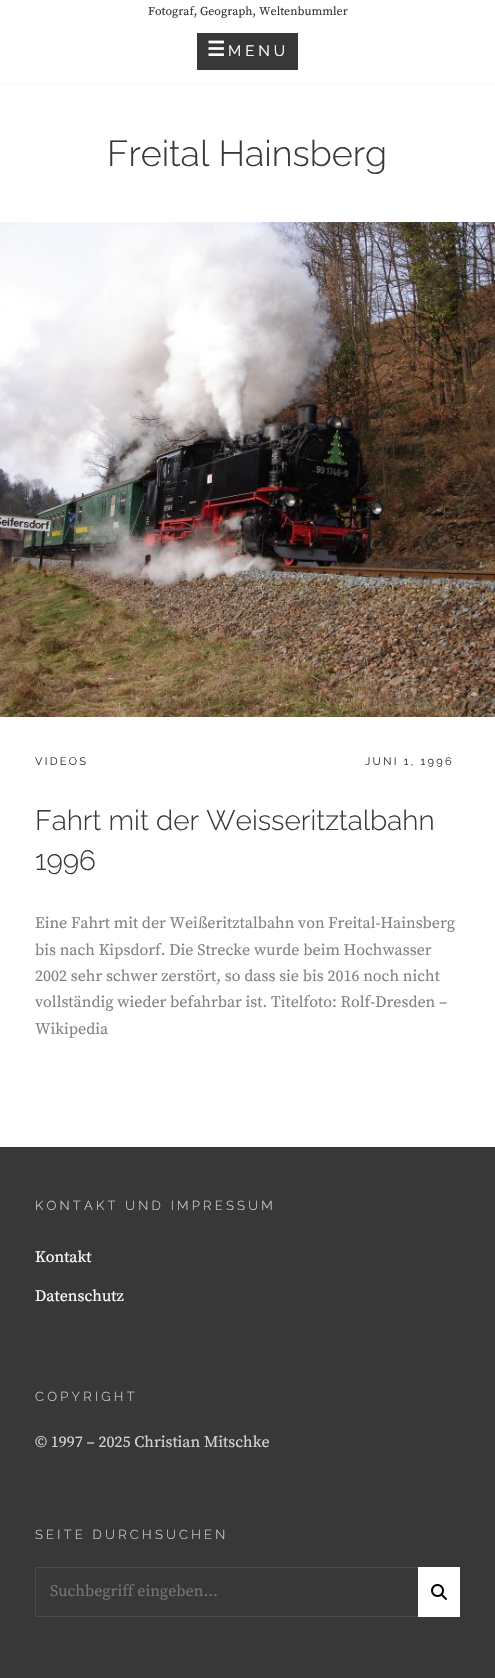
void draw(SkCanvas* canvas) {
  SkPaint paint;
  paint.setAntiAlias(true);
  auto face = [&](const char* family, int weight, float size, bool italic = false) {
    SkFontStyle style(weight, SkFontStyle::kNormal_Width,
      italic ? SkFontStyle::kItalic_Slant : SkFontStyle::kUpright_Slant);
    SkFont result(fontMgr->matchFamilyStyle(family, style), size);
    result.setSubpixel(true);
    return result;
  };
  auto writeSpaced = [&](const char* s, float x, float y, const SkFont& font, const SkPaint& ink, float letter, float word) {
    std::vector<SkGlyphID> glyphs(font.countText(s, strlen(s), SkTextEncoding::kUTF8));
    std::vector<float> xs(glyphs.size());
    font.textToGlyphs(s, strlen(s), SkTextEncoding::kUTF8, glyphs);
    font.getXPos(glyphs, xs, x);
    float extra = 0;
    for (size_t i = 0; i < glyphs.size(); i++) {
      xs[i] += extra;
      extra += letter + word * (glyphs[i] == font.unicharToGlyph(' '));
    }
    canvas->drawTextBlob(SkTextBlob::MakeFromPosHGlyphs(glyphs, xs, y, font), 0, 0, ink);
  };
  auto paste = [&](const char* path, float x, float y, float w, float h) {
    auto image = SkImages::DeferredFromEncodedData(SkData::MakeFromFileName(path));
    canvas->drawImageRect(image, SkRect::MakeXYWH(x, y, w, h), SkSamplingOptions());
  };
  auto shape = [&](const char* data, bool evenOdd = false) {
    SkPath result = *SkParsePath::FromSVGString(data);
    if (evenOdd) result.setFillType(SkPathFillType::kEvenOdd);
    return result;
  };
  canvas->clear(0xffffffff);
  paint.setColor(0xfff7f7f7);
  canvas->drawRect(SkRect::MakeXYWH(0, 84, 495, 1), paint);
  paint.setColor(0xff383838);
  canvas->drawRect(SkRect::MakeXYWH(197, 33, 101, 37), paint);
  paste("img/1.png", 0, 222, 495, 495);
  canvas->drawRect(SkRect::MakeXYWH(0, 1147, 495, 531), paint);
  paint.setColor(0xff4b4b4b);
  canvas->drawPath(shape("M35 1567H418V1568H36Z"), paint);
  canvas->drawPath(shape("M418 1617H35L36 1616H418Z"), paint);
  paint.setColor(0x40828282);
  canvas->drawPath(shape("M35 1617V1567L36 1568V1616Z"), paint);
  paint.setColor(0xffffffff);
  canvas->drawRect(SkRect::MakeXYWH(418, 1567, 42, 50), paint);
  paste("img/2.png", 431, 1584, 16, 16);
  auto f0 = face("Source Serif Pro", 400, 12);
  paint.setColor(0xff383838);
  canvas->drawString("Fotograf, Geograph, Weltenbummler", 148, 15, f0, paint);
  auto f1 = face("DejaVu Sans", 700, 20);
  paint.setColor(0xffffffff);
  writeSpaced("☰", 207, 56, f1, paint, 4, 0);
  auto f2 = face("Raleway", 400, 15);
  writeSpaced("MENU", 228, 56, f2, paint, 4, 0);
  auto f3 = face("Raleway", 300, 36);
  paint.setColor(0xff383838);
  canvas->drawString("Freital Hainsberg", 107, 166, f3, paint);
  auto f4 = face("Raleway", 400, 11);
  writeSpaced("VIDEOS", 35, 765, f4, paint, 2.25f, 0);
  writeSpaced("JUNI 1, 1996", 365, 765, f4, paint, 2.25f, 0);
  auto f5 = face("Raleway", 300, 28);
  canvas->drawString("Fahrt mit der Weisseritztalbahn", 35, 830, f5, paint);
  canvas->drawString("1996", 35, 870, f5, paint);
  auto f6 = face("Source Serif Pro", 400, 16);
  paint.setColor(0xff828282);
  {
    const struct { const char* s; float x, y; } items[] = {
      {"Eine Fahrt mit der Weißeritztalbahn von Freital-Hainsberg", 35, 928},
      {"bis nach Kipsdorf. Die Strecke wurde beim Hochwasser", 35, 955},
      {"2002 sehr schwer zerstört, so dass sie bis 2016 noch nicht", 35, 981},
      {"vollständig wieder befahrbar ist. Titelfoto: Rolf-Dresden –", 35, 1007},
      {"Wikipedia", 35, 1034},
    };
    for (auto [s, x, y] : items) {
      canvas->drawString(s, x, y, f6, paint);
    }
  }
  auto f7 = face("Raleway", 300, 13);
  paint.setColor(0xffd6d6d6);
  writeSpaced("KONTAKT UND IMPRESSUM", 35, 1210, f7, paint, 3.25f, 0);
  paint.setColor(0xffffffff);
  canvas->drawString("Kontakt", 35, 1262, f6, paint);
  canvas->drawString("Datenschutz", 35, 1301, f6, paint);
  paint.setColor(0xffd6d6d6);
  writeSpaced("COPYRIGHT", 35, 1401, f7, paint, 3.25f, 0);
  canvas->drawString("© 1997 – 2025 Christian Mitschke", 35, 1447, f6, paint);
  writeSpaced("SEITE DURCHSUCHEN", 35, 1539, f7, paint, 3.25f, 0);
  paint.setColor(0xff757575);
  canvas->drawString("Suchbegriff eingeben...", 50, 1596, f6, paint);
}
